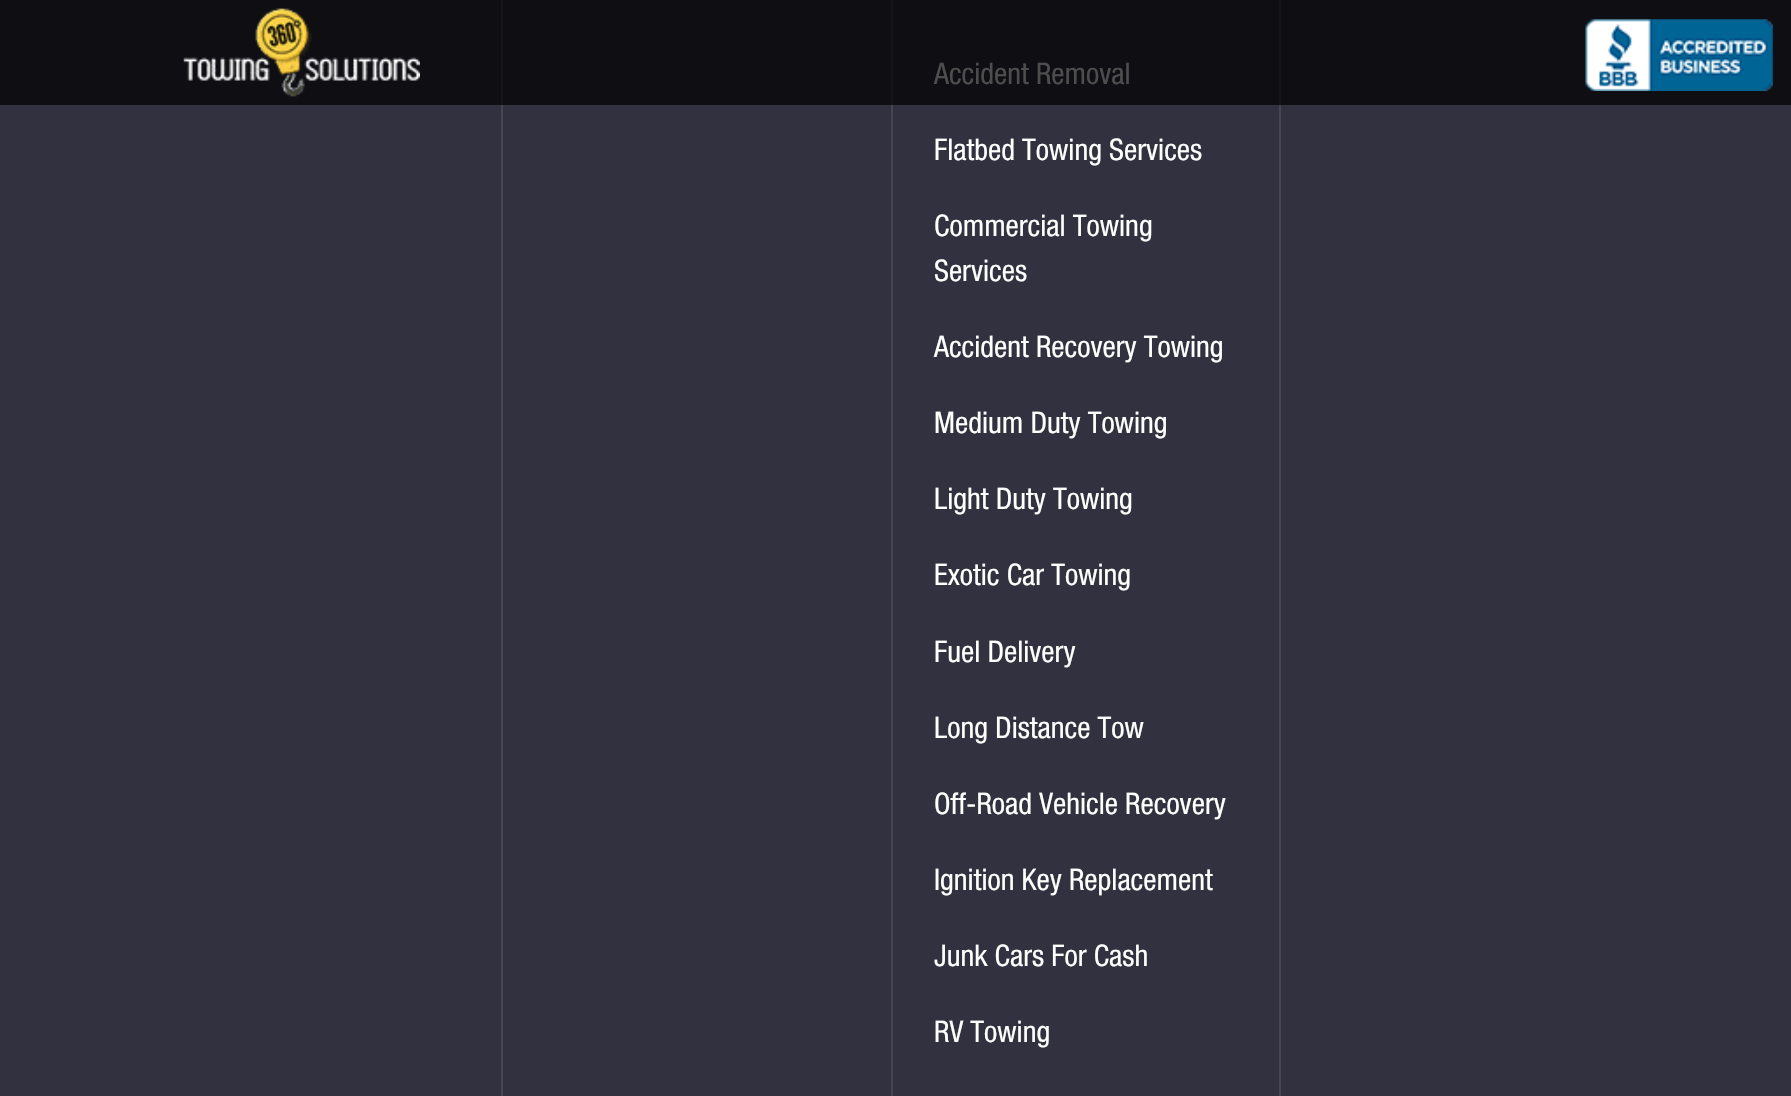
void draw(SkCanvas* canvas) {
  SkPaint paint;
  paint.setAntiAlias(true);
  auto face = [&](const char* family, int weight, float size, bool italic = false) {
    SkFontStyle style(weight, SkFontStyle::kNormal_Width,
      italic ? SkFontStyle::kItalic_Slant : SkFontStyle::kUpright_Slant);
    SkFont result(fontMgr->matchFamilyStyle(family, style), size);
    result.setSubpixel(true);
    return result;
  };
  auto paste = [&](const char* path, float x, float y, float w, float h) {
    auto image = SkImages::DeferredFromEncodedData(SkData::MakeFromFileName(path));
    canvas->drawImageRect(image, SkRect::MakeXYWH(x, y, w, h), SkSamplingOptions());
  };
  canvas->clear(0xff313140);
  paint.setColor(0xff0f0f13);
  canvas->drawRect(SkRect::MakeXYWH(0, 0, 1791, 105), paint);
  paste("img/1.png", 183, 8, 237, 89);
  paste("img/2.png", 1585, 19, 188, 72);
  {
    const struct { float x, y, w, h; SkColor color; } items[] = {
      {501, 105, 2, 991, 0xff464653},
      {501, 0, 2, 105, 0xff151519},
      {891, 105, 2, 991, 0xff464653},
      {891, 0, 2, 105, 0xff151519},
      {1279, 105, 2, 991, 0xff464653},
      {1279, 0, 2, 105, 0xff151519},
    };
    for (auto [x, y, w, h, color] : items) {
      paint.setColor(color);
      canvas->drawRect(SkRect::MakeXYWH(x, y, w, h), paint);
    }
  }
  auto f0 = face("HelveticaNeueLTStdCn", 400, 29.75f);
  paint.setColor(0xff4d4d4d);
  canvas->drawString("Accident Removal", 934, 84, f0, paint);
  paint.setColor(0xffffffff);
  {
    const struct { const char* s; float x, y; } items[] = {
      {"Flatbed Towing Services", 934, 160},
      {"Commercial Towing", 934, 236},
      {"Services", 934, 281},
      {"Accident Recovery Towing", 934, 357},
      {"Medium Duty Towing", 934, 433},
      {"Light Duty Towing", 934, 509},
      {"Exotic Car Towing", 934, 585},
      {"Fuel Delivery", 934, 662},
      {"Long Distance Tow", 934, 738},
      {"Off-Road Vehicle Recovery", 934, 814},
      {"Ignition Key Replacement", 934, 890},
      {"Junk Cars For Cash", 934, 966},
      {"RV Towing", 934, 1042},
    };
    for (auto [s, x, y] : items) {
      canvas->drawString(s, x, y, f0, paint);
    }
  }
}
